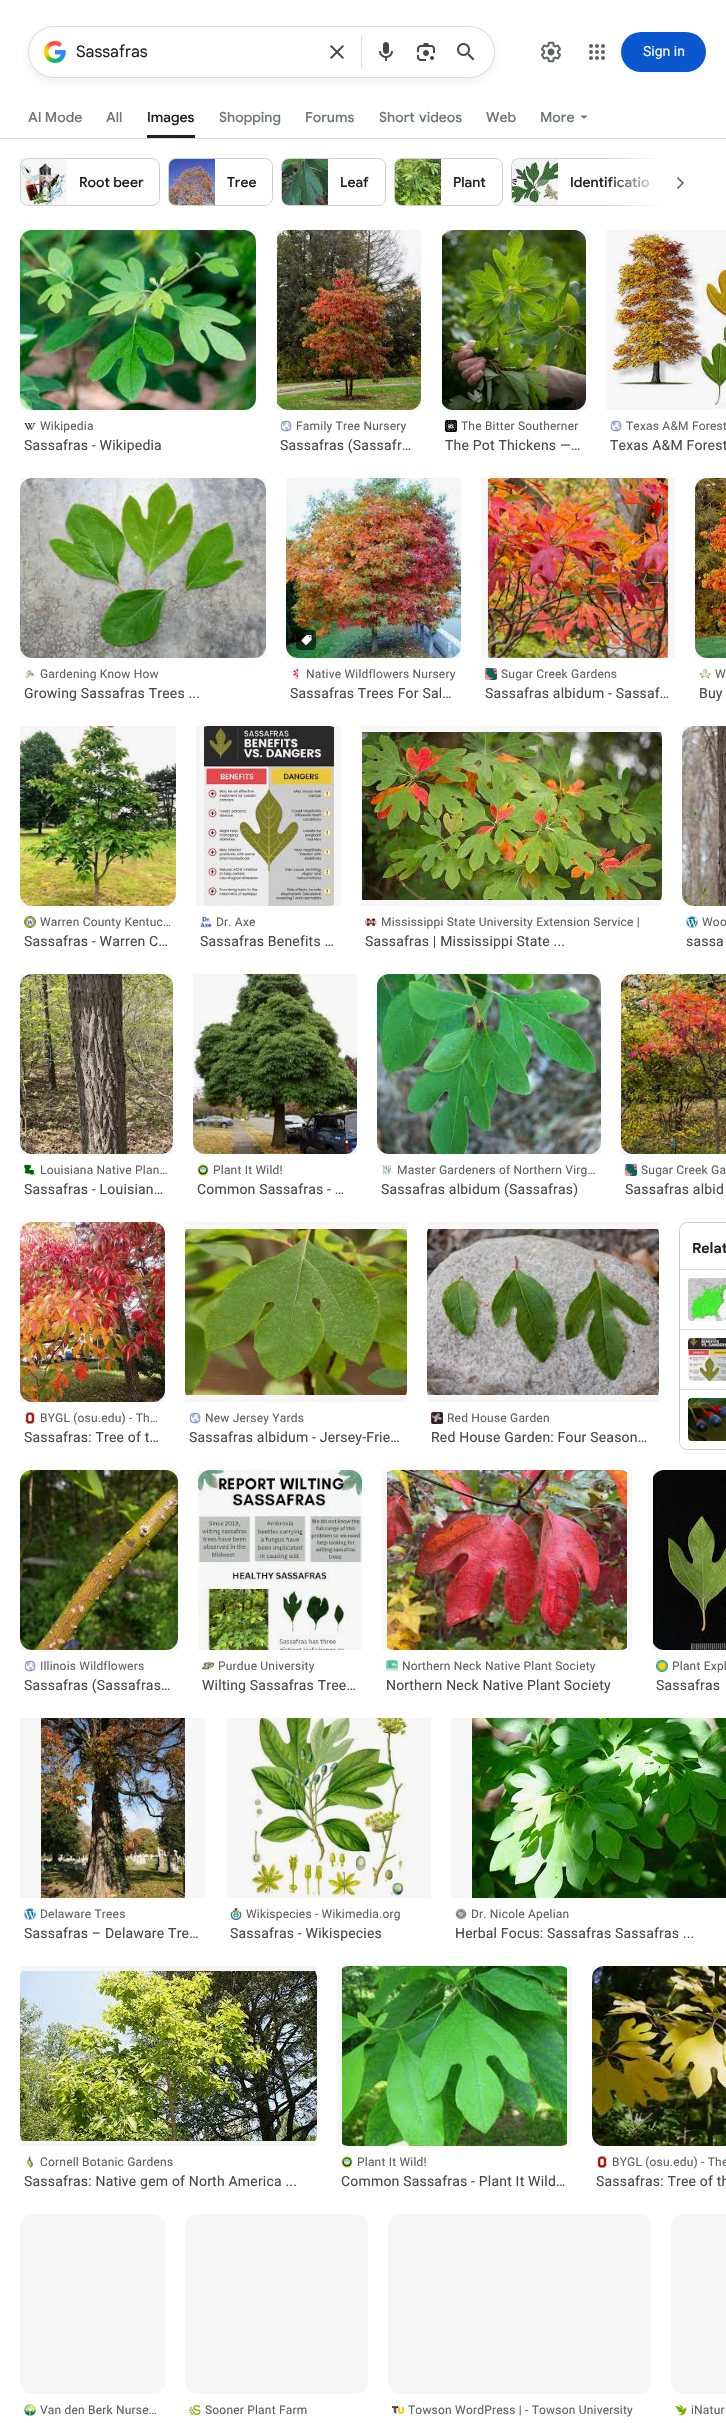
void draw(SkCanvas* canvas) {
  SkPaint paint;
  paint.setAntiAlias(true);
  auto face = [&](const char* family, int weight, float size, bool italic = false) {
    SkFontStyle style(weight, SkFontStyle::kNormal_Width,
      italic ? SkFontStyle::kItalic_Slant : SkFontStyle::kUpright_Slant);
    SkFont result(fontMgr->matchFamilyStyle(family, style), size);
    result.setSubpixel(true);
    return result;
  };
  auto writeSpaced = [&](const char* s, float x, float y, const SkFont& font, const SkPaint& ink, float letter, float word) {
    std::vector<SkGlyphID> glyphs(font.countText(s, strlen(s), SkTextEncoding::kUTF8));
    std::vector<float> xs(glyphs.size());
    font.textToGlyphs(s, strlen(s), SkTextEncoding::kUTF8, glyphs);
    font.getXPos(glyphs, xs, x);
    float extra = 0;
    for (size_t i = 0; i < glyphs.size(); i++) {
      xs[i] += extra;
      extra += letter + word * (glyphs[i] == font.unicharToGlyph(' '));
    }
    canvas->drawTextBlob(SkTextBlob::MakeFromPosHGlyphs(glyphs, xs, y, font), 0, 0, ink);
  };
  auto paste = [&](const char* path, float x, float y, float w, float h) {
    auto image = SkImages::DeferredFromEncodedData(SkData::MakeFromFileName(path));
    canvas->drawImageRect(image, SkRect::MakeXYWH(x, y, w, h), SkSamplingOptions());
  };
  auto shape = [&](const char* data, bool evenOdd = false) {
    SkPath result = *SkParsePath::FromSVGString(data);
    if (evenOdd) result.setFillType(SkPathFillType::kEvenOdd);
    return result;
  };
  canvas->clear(0xffffffff);
  paint.setColor(0x141f1f1f);
  paint.setMaskFilter(SkMaskFilter::MakeBlur(kNormal_SkBlurStyle, 5));
  canvas->drawRoundRect(SkRect::MakeXYWH(28, 29, 467, 52), 26, 26, paint);
  paint.setMaskFilter(nullptr);
  paint.setColor(0xffffffff);
  canvas->drawRoundRect(SkRect::MakeXYWH(28.5f, 26.5f, 466, 51), 25.5f, 25.5f, paint);
  paint.setStroke(true);
  paint.setStrokeWidth(1);
  paint.setColor(0xffdadce0);
  canvas->drawRoundRect(SkRect::MakeXYWH(28.5f, 26.5f, 466, 51), 25.5f, 25.5f, paint);
  paste("img/1.png", 44, 41, 22, 22);
  paste("img/2.png", 330, 45, 14, 14);
  paint.setStroke(false);
  canvas->drawRect(SkRect::MakeXYWH(361, 36, 1, 32), paint);
  paste("img/3.png", 379, 42, 14, 19);
  paste("img/4.png", 417, 43, 18, 18);
  paste("img/5.png", 457, 43, 18, 18);
  paste("img/6.png", 541, 41, 20, 22);
  paste("img/7.png", 589, 44, 16, 16);
  paint.setColor(0xff0b57d0);
  canvas->drawRoundRect(SkRect::MakeXYWH(621, 32, 85, 40), 20, 20, paint);
  paint.setColor(0xff1f1f1f);
  canvas->drawRect(SkRect::MakeXYWH(147, 135, 48, 3), paint);
  paint.setColor(0xff70757a);
  canvas->drawPath(shape("M580.5 115.5L584 119L587.5 115.5Z"), paint);
  paint.setColor(0xffdadce0);
  canvas->drawRect(SkRect::MakeXYWH(0, 138, 726, 1), paint);
  paint.setStroke(true);
  paint.setColor(0xffd2d2d2);
  canvas->drawRoundRect(SkRect::MakeXYWH(20.5f, 158.5f, 139, 47), 7.5f, 7.5f, paint);
  paste("img/8.png", 21, 159, 46, 46);
  paint.setStroke(false);
  paint.setColor(0x08000000);
  canvas->drawRect(SkRect::MakeXYWH(21, 159, 46, 46), paint);
  paint.setStroke(true);
  paint.setColor(0xffd2d2d2);
  canvas->drawRoundRect(SkRect::MakeXYWH(168.5f, 158.5f, 104, 47), 7.5f, 7.5f, paint);
  paste("img/9.png", 169, 159, 46, 46);
  paint.setStroke(false);
  paint.setColor(0x08000000);
  canvas->drawRect(SkRect::MakeXYWH(169, 159, 46, 46), paint);
  paint.setStroke(true);
  paint.setColor(0xffd2d2d2);
  canvas->drawRoundRect(SkRect::MakeXYWH(281.5f, 158.5f, 104, 47), 7.5f, 7.5f, paint);
  paste("img/10.png", 282, 159, 46, 46);
  paint.setStroke(false);
  paint.setColor(0x08000000);
  canvas->drawRect(SkRect::MakeXYWH(282, 159, 46, 46), paint);
  paint.setStroke(true);
  paint.setColor(0xffd2d2d2);
  canvas->drawRoundRect(SkRect::MakeXYWH(394.5f, 158.5f, 108, 47), 7.5f, 7.5f, paint);
  paste("img/11.png", 395, 159, 46, 46);
  paint.setStroke(false);
  paint.setColor(0x08000000);
  canvas->drawRect(SkRect::MakeXYWH(395, 159, 46, 46), paint);
  paint.setStroke(true);
  paint.setColor(0xffd2d2d2);
  canvas->drawRoundRect(SkRect::MakeXYWH(511.5f, 158.5f, 162, 47), 7.5f, 7.5f, paint);
  paste("img/12.png", 512, 159, 46, 46);
  paint.setStroke(false);
  paint.setColor(0x08000000);
  canvas->drawRect(SkRect::MakeXYWH(512, 159, 46, 46), paint);
  paste("img/13.png", 677, 177, 7, 12);
  paste("img/14.png", 20, 230, 236, 180);
  canvas->drawRect(SkRect::MakeXYWH(20, 230, 236, 180), paint);
  paste("img/15.png", 24, 423, 12, 8);
  paste("img/16.png", 277, 230, 144, 180);
  canvas->drawRect(SkRect::MakeXYWH(276, 230, 145, 180), paint);
  paste("img/17.png", 280, 420, 12, 12);
  paste("img/18.png", 442, 230, 144, 180);
  canvas->drawRect(SkRect::MakeXYWH(441, 230, 145, 180), paint);
  paste("img/19.png", 445, 420, 12, 12);
  paste("img/20.png", 611, 230, 115, 179);
  canvas->drawRect(SkRect::MakeXYWH(606, 230, 120, 180), paint);
  paste("img/21.png", 610, 420, 12, 12);
  paste("img/22.png", 20, 478, 246, 180);
  canvas->drawRect(SkRect::MakeXYWH(20, 478, 246, 180), paint);
  paste("img/23.png", 25, 669, 10, 10);
  paste("img/24.png", 286, 478, 175, 180);
  canvas->drawRect(SkRect::MakeXYWH(286, 478, 175, 180), paint);
  paint.setColor(0x99000000);
  canvas->drawRoundRect(SkRect::MakeXYWH(296, 630, 20, 20), 4, 4, paint);
  paste("img/25.png", 301, 635, 11, 10);
  paste("img/26.png", 293, 668, 6, 12);
  paste("img/27.png", 488, 478, 180, 180);
  paint.setColor(0x08000000);
  canvas->drawRect(SkRect::MakeXYWH(481, 478, 194, 180), paint);
  paste("img/28.png", 485, 668, 12, 12);
  paste("img/29.png", 695, 478, 31, 180);
  canvas->drawRect(SkRect::MakeXYWH(695, 478, 31, 180), paint);
  paste("img/30.png", 699, 668, 12, 11);
  paste("img/31.png", 20, 726, 156, 180);
  canvas->drawRect(SkRect::MakeXYWH(20, 726, 156, 180), paint);
  paste("img/32.png", 24, 916, 12, 12);
  paste("img/33.png", 204, 726, 130, 180);
  canvas->drawRect(SkRect::MakeXYWH(196, 726, 145, 180), paint);
  paste("img/34.png", 200, 916, 12, 12);
  paste("img/35.png", 362, 732, 300, 168);
  canvas->drawRect(SkRect::MakeXYWH(361, 726, 301, 180), paint);
  paste("img/36.png", 365, 918, 12, 8);
  paste("img/37.png", 682, 726, 44, 180);
  canvas->drawRect(SkRect::MakeXYWH(682, 726, 44, 180), paint);
  paste("img/38.png", 686, 916, 12, 12);
  paste("img/39.png", 20, 974, 153, 180);
  canvas->drawRect(SkRect::MakeXYWH(20, 974, 153, 180), paint);
  paste("img/40.png", 24, 1164, 12, 12);
  paste("img/41.png", 193, 974, 164, 180);
  canvas->drawRect(SkRect::MakeXYWH(193, 974, 164, 180), paint);
  paste("img/42.png", 197, 1164, 12, 12);
  paste("img/43.png", 377, 974, 224, 180);
  canvas->drawRect(SkRect::MakeXYWH(377, 974, 224, 180), paint);
  paste("img/44.png", 381, 1164, 12, 12);
  paste("img/45.png", 621, 974, 105, 180);
  canvas->drawRect(SkRect::MakeXYWH(621, 974, 105, 180), paint);
  paste("img/28.png", 625, 1164, 12, 12);
  paint.setStroke(true);
  paint.setColor(0xffd2d2d2);
  canvas->drawRoundRect(SkRect::MakeXYWH(679.5f, 1222.5f, 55, 227), 7.5f, 7.5f, paint);
  paint.setStroke(false);
  paint.setColor(0xffdadce0);
  canvas->drawRect(SkRect::MakeXYWH(680, 1269, 46, 1), paint);
  paste("img/46.png", 688, 1278, 38, 43);
  paint.setColor(0x08000000);
  canvas->drawRect(SkRect::MakeXYWH(688, 1278, 38, 43), paint);
  paint.setColor(0xffdadce0);
  canvas->drawRect(SkRect::MakeXYWH(680, 1329, 46, 1), paint);
  paste("img/47.png", 688, 1338, 38, 43);
  paint.setColor(0x08000000);
  canvas->drawRect(SkRect::MakeXYWH(688, 1338, 38, 43), paint);
  paint.setColor(0xffdadce0);
  canvas->drawRect(SkRect::MakeXYWH(680, 1389, 46, 1), paint);
  paste("img/48.png", 688, 1398, 38, 43);
  paint.setColor(0x08000000);
  canvas->drawRect(SkRect::MakeXYWH(688, 1398, 38, 43), paint);
  paste("img/49.png", 20, 1222, 145, 180);
  canvas->drawRect(SkRect::MakeXYWH(20, 1222, 145, 180), paint);
  paste("img/50.png", 25, 1412, 10, 12);
  paste("img/51.png", 185, 1229, 222, 166);
  canvas->drawRect(SkRect::MakeXYWH(185, 1222, 222, 180), paint);
  paste("img/21.png", 189, 1412, 12, 12);
  paste("img/52.png", 427, 1229, 232, 166);
  canvas->drawRect(SkRect::MakeXYWH(427, 1222, 232, 180), paint);
  paste("img/53.png", 431, 1412, 12, 12);
  paste("img/54.png", 20, 1470, 158, 180);
  canvas->drawRect(SkRect::MakeXYWH(20, 1470, 158, 180), paint);
  paste("img/21.png", 24, 1660, 12, 12);
  paste("img/55.png", 198, 1470, 164, 180);
  canvas->drawRect(SkRect::MakeXYWH(198, 1470, 164, 180), paint);
  paste("img/56.png", 202, 1662, 12, 8);
  paste("img/57.png", 387, 1470, 240, 180);
  canvas->drawRect(SkRect::MakeXYWH(382, 1470, 250, 180), paint);
  paste("img/58.png", 386, 1660, 12, 12);
  paste("img/59.png", 653, 1470, 73, 180);
  canvas->drawRect(SkRect::MakeXYWH(652, 1470, 74, 180), paint);
  paste("img/60.png", 656, 1660, 12, 12);
  paste("img/61.png", 41, 1718, 144, 180);
  canvas->drawRect(SkRect::MakeXYWH(20, 1718, 186, 180), paint);
  paste("img/62.png", 24, 1908, 12, 12);
  paste("img/63.png", 243, 1718, 165, 180);
  canvas->drawRect(SkRect::MakeXYWH(226, 1718, 205, 180), paint);
  paste("img/64.png", 230, 1908, 12, 12);
  paste("img/65.png", 472, 1718, 254, 180);
  canvas->drawRect(SkRect::MakeXYWH(451, 1718, 275, 180), paint);
  paste("img/66.png", 455, 1908, 12, 12);
  paste("img/67.png", 20, 1971, 297, 170);
  canvas->drawRect(SkRect::MakeXYWH(20, 1966, 297, 180), paint);
  paste("img/68.png", 27, 2156, 6, 12);
  paste("img/69.png", 342, 1966, 225, 180);
  canvas->drawRect(SkRect::MakeXYWH(337, 1966, 235, 180), paint);
  paste("img/70.png", 341, 2156, 12, 12);
  paste("img/71.png", 592, 1966, 134, 180);
  canvas->drawRect(SkRect::MakeXYWH(592, 1966, 134, 180), paint);
  paste("img/72.png", 597, 2156, 10, 12);
  paint.setColor(0xfff7f7f7);
  canvas->drawRoundRect(SkRect::MakeXYWH(20, 2214, 145, 180), 12, 12, paint);
  paste("img/73.png", 24, 2404, 12, 12);
  canvas->drawRoundRect(SkRect::MakeXYWH(185, 2214, 183, 180), 12, 12, paint);
  paste("img/74.png", 189, 2404, 12, 12);
  canvas->drawRoundRect(SkRect::MakeXYWH(388, 2214, 263, 180), 12, 12, paint);
  paste("img/75.png", 392, 2406, 12, 8);
  canvas->drawRoundRect(SkRect::MakeXYWH(671, 2214, 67, 180), 12, 12, paint);
  paste("img/76.png", 675, 2404, 12, 12);
  auto f0 = face("Google Sans", 400, 16);
  paint.setColor(0xff1f1f1f);
  canvas->drawString("Sassafras", 76, 57, f0, paint);
  auto f1 = face("Roboto", 400, 14);
  paint.setColor(0xffffffff);
  canvas->drawString("Sign in", 643, 56, f1, paint);
  auto f2 = face("Google Sans", 500, 14);
  paint.setColor(0xff70757a);
  canvas->drawString("AI Mode", 28, 122, f2, paint);
  canvas->drawString("All", 106, 122, f2, paint);
  paint.setColor(0xff1f1f1f);
  canvas->drawString("Images", 147, 122, f2, paint);
  paint.setColor(0xff70757a);
  canvas->drawString("Shopping", 219, 122, f2, paint);
  canvas->drawString("Forums", 305, 122, f2, paint);
  writeSpaced("Short videos", 379, 122, f2, paint, 0, 1);
  canvas->drawString("Web", 486, 122, f2, paint);
  canvas->drawString("More", 540, 122, f2, paint);
  paint.setColor(0xff1f1f1f);
  {
    const struct { const char* s; float x, y; } items[] = {
      {"Root beer", 79, 187},
      {"Tree", 227, 187},
      {"Leaf", 340, 187},
      {"Plant", 453, 187},
      {"Identificatio", 570, 187},
    };
    for (auto [s, x, y] : items) {
      canvas->drawString(s, x, y, f2, paint);
    }
  }
  {
    const SkColor colors[] = {0x00ffffff, 0xffffffff, 0xffffffff};
    const float stops[] = {0, 0.6f, 1};
    const SkPoint ends[] = {{604, 183}, {704, 183}};
    paint.setShader(SkGradientShader::MakeLinear(ends, colors, stops, 3, SkTileMode::kClamp));
    paint.setAlpha(255);
  }
  canvas->drawRect(SkRect::MakeXYWH(605, 158, 69, 48), paint);
  auto f3 = face("Roboto", 400, 12);
  paint.setShader(nullptr);
  paint.setColor(0xff5e5e5e);
  writeSpaced("Wikipedia", 40, 430, f3, paint, 0.2f, 0);
  paint.setColor(0xff474747);
  writeSpaced("Sassafras - Wikipedia", 24, 450, f1, paint, 0.2f, 0);
  paint.setColor(0xff5e5e5e);
  writeSpaced("Family Tree Nursery", 296, 430, f3, paint, 0.2f, 0);
  paint.setColor(0xff474747);
  writeSpaced("Sassafras (Sassafr…", 280, 450, f1, paint, 0.2f, 0);
  paint.setColor(0xff5e5e5e);
  writeSpaced("The Bitter Southerner", 461, 430, f3, paint, 0.2f, 0);
  paint.setColor(0xff474747);
  writeSpaced("The Pot Thickens —…", 445, 450, f1, paint, 0.2f, 0);
  paint.setColor(0xff5e5e5e);
  writeSpaced("Texas A&M Forest", 626, 430, f3, paint, 0.2f, 0);
  paint.setColor(0xff474747);
  writeSpaced("Texas A&M Forest", 610, 450, f1, paint, 0.2f, 0);
  paint.setColor(0xff5e5e5e);
  writeSpaced("Gardening Know How", 40, 678, f3, paint, 0.2f, 0);
  paint.setColor(0xff474747);
  writeSpaced("Growing Sassafras Trees ...", 24, 698, f1, paint, 0.2f, 0);
  paint.setColor(0xff5e5e5e);
  writeSpaced("Native Wildflowers Nursery", 306, 678, f3, paint, 0.2f, 0);
  paint.setColor(0xff474747);
  writeSpaced("Sassafras Trees For Sal…", 290, 698, f1, paint, 0.2f, 0);
  paint.setColor(0xff5e5e5e);
  writeSpaced("Sugar Creek Gardens", 501, 678, f3, paint, 0.2f, 0);
  paint.setColor(0xff474747);
  writeSpaced("Sassafras albidum - Sassaf…", 485, 698, f1, paint, 0.2f, 0);
  paint.setColor(0xff5e5e5e);
  writeSpaced("W", 715, 678, f3, paint, 0.2f, 0);
  paint.setColor(0xff474747);
  writeSpaced("Buy", 699, 698, f1, paint, 0.2f, 0);
  paint.setColor(0xff5e5e5e);
  writeSpaced("Warren County Kentuc…", 40, 926, f3, paint, 0.2f, 0);
  paint.setColor(0xff474747);
  writeSpaced("Sassafras - Warren C…", 24, 946, f1, paint, 0.2f, 0);
  paint.setColor(0xff5e5e5e);
  writeSpaced("Dr. Axe", 216, 926, f3, paint, 0.2f, 0);
  paint.setColor(0xff474747);
  writeSpaced("Sassafras Benefits …", 200, 946, f1, paint, 0.2f, 0);
  paint.setColor(0xff5e5e5e);
  writeSpaced("Mississippi State University Extension Service |", 381, 926, f3, paint, 0.2f, 0);
  paint.setColor(0xff474747);
  writeSpaced("Sassafras | Mississippi State ...", 365, 946, f1, paint, 0.2f, 0);
  paint.setColor(0xff5e5e5e);
  writeSpaced("Woo", 702, 926, f3, paint, 0.2f, 0);
  paint.setColor(0xff474747);
  writeSpaced("sassa", 686, 946, f1, paint, 0.2f, 0);
  paint.setColor(0xff5e5e5e);
  writeSpaced("Louisiana Native Plan…", 40, 1174, f3, paint, 0.2f, 0);
  paint.setColor(0xff474747);
  writeSpaced("Sassafras - Louisian…", 24, 1194, f1, paint, 0.2f, 0);
  paint.setColor(0xff5e5e5e);
  writeSpaced("Plant It Wild!", 213, 1174, f3, paint, 0.2f, 0);
  paint.setColor(0xff474747);
  writeSpaced("Common Sassafras - …", 197, 1194, f1, paint, 0.2f, 0);
  paint.setColor(0xff5e5e5e);
  writeSpaced("Master Gardeners of Northern Virg…", 397, 1174, f3, paint, 0.2f, 0);
  paint.setColor(0xff474747);
  writeSpaced("Sassafras albidum (Sassafras)", 381, 1194, f1, paint, 0.2f, 0);
  paint.setColor(0xff5e5e5e);
  writeSpaced("Sugar Creek Ga", 641, 1174, f3, paint, 0.2f, 0);
  paint.setColor(0xff474747);
  writeSpaced("Sassafras albid", 625, 1194, f1, paint, 0.2f, 0);
  auto f4 = face("Google Sans", 700, 14);
  paint.setColor(0xff1f1f1f);
  canvas->drawString("Relat", 692, 1253, f4, paint);
  paint.setColor(0xff5e5e5e);
  writeSpaced("BYGL (osu.edu) - Th…", 40, 1422, f3, paint, 0.2f, 0);
  paint.setColor(0xff474747);
  writeSpaced("Sassafras: Tree of t…", 24, 1442, f1, paint, 0.2f, 0);
  paint.setColor(0xff5e5e5e);
  writeSpaced("New Jersey Yards", 205, 1422, f3, paint, 0.2f, 0);
  paint.setColor(0xff474747);
  writeSpaced("Sassafras albidum - Jersey-Frie…", 189, 1442, f1, paint, 0.2f, 0);
  paint.setColor(0xff5e5e5e);
  writeSpaced("Red House Garden", 447, 1422, f3, paint, 0.2f, 0);
  paint.setColor(0xff474747);
  writeSpaced("Red House Garden: Four Season…", 431, 1442, f1, paint, 0.2f, 0);
  paint.setColor(0xff5e5e5e);
  writeSpaced("Illinois Wildflowers", 40, 1670, f3, paint, 0.2f, 0);
  paint.setColor(0xff474747);
  writeSpaced("Sassafras (Sassafras…", 24, 1690, f1, paint, 0.2f, 0);
  paint.setColor(0xff5e5e5e);
  writeSpaced("Purdue University", 218, 1670, f3, paint, 0.2f, 0);
  paint.setColor(0xff474747);
  writeSpaced("Wilting Sassafras Tree…", 202, 1690, f1, paint, 0.2f, 0);
  paint.setColor(0xff5e5e5e);
  writeSpaced("Northern Neck Native Plant Society", 402, 1670, f3, paint, 0.2f, 0);
  paint.setColor(0xff474747);
  writeSpaced("Northern Neck Native Plant Society", 386, 1690, f1, paint, 0.2f, 0);
  paint.setColor(0xff5e5e5e);
  writeSpaced("Plant Expl", 672, 1670, f3, paint, 0.2f, 0);
  paint.setColor(0xff474747);
  writeSpaced("Sassafras", 656, 1690, f1, paint, 0.2f, 0);
  paint.setColor(0xff5e5e5e);
  writeSpaced("Delaware Trees", 40, 1918, f3, paint, 0.2f, 0);
  paint.setColor(0xff474747);
  writeSpaced("Sassafras – Delaware Tre…", 24, 1938, f1, paint, 0.2f, 0);
  paint.setColor(0xff5e5e5e);
  writeSpaced("Wikispecies - Wikimedia.org", 246, 1918, f3, paint, 0.2f, 0);
  paint.setColor(0xff474747);
  writeSpaced("Sassafras - Wikispecies", 230, 1938, f1, paint, 0.2f, 0);
  paint.setColor(0xff5e5e5e);
  writeSpaced("Dr. Nicole Apelian", 471, 1918, f3, paint, 0.2f, 0);
  paint.setColor(0xff474747);
  writeSpaced("Herbal Focus: Sassafras Sassafras ...", 455, 1938, f1, paint, 0.2f, 0);
  paint.setColor(0xff5e5e5e);
  writeSpaced("Cornell Botanic Gardens", 40, 2166, f3, paint, 0.2f, 0);
  paint.setColor(0xff474747);
  writeSpaced("Sassafras: Native gem of North America ...", 24, 2186, f1, paint, 0.2f, 0);
  paint.setColor(0xff5e5e5e);
  writeSpaced("Plant It Wild!", 357, 2166, f3, paint, 0.2f, 0);
  paint.setColor(0xff474747);
  writeSpaced("Common Sassafras - Plant It Wild…", 341, 2186, f1, paint, 0.2f, 0);
  paint.setColor(0xff5e5e5e);
  writeSpaced("BYGL (osu.edu) - The", 612, 2166, f3, paint, 0.2f, 0);
  paint.setColor(0xff474747);
  writeSpaced("Sassafras: Tree of th", 596, 2186, f1, paint, 0.2f, 0);
  paint.setColor(0xff5e5e5e);
  {
    const struct { const char* s; float x, y; } items[] = {
      {"Van den Berk Nurse…", 40, 2414},
      {"Sooner Plant Farm", 205, 2414},
      {"Towson WordPress | - Towson University", 408, 2414},
      {"iNatur", 691, 2414},
    };
    for (auto [s, x, y] : items) {
      writeSpaced(s, x, y, f3, paint, 0.2f, 0);
    }
  }
}
